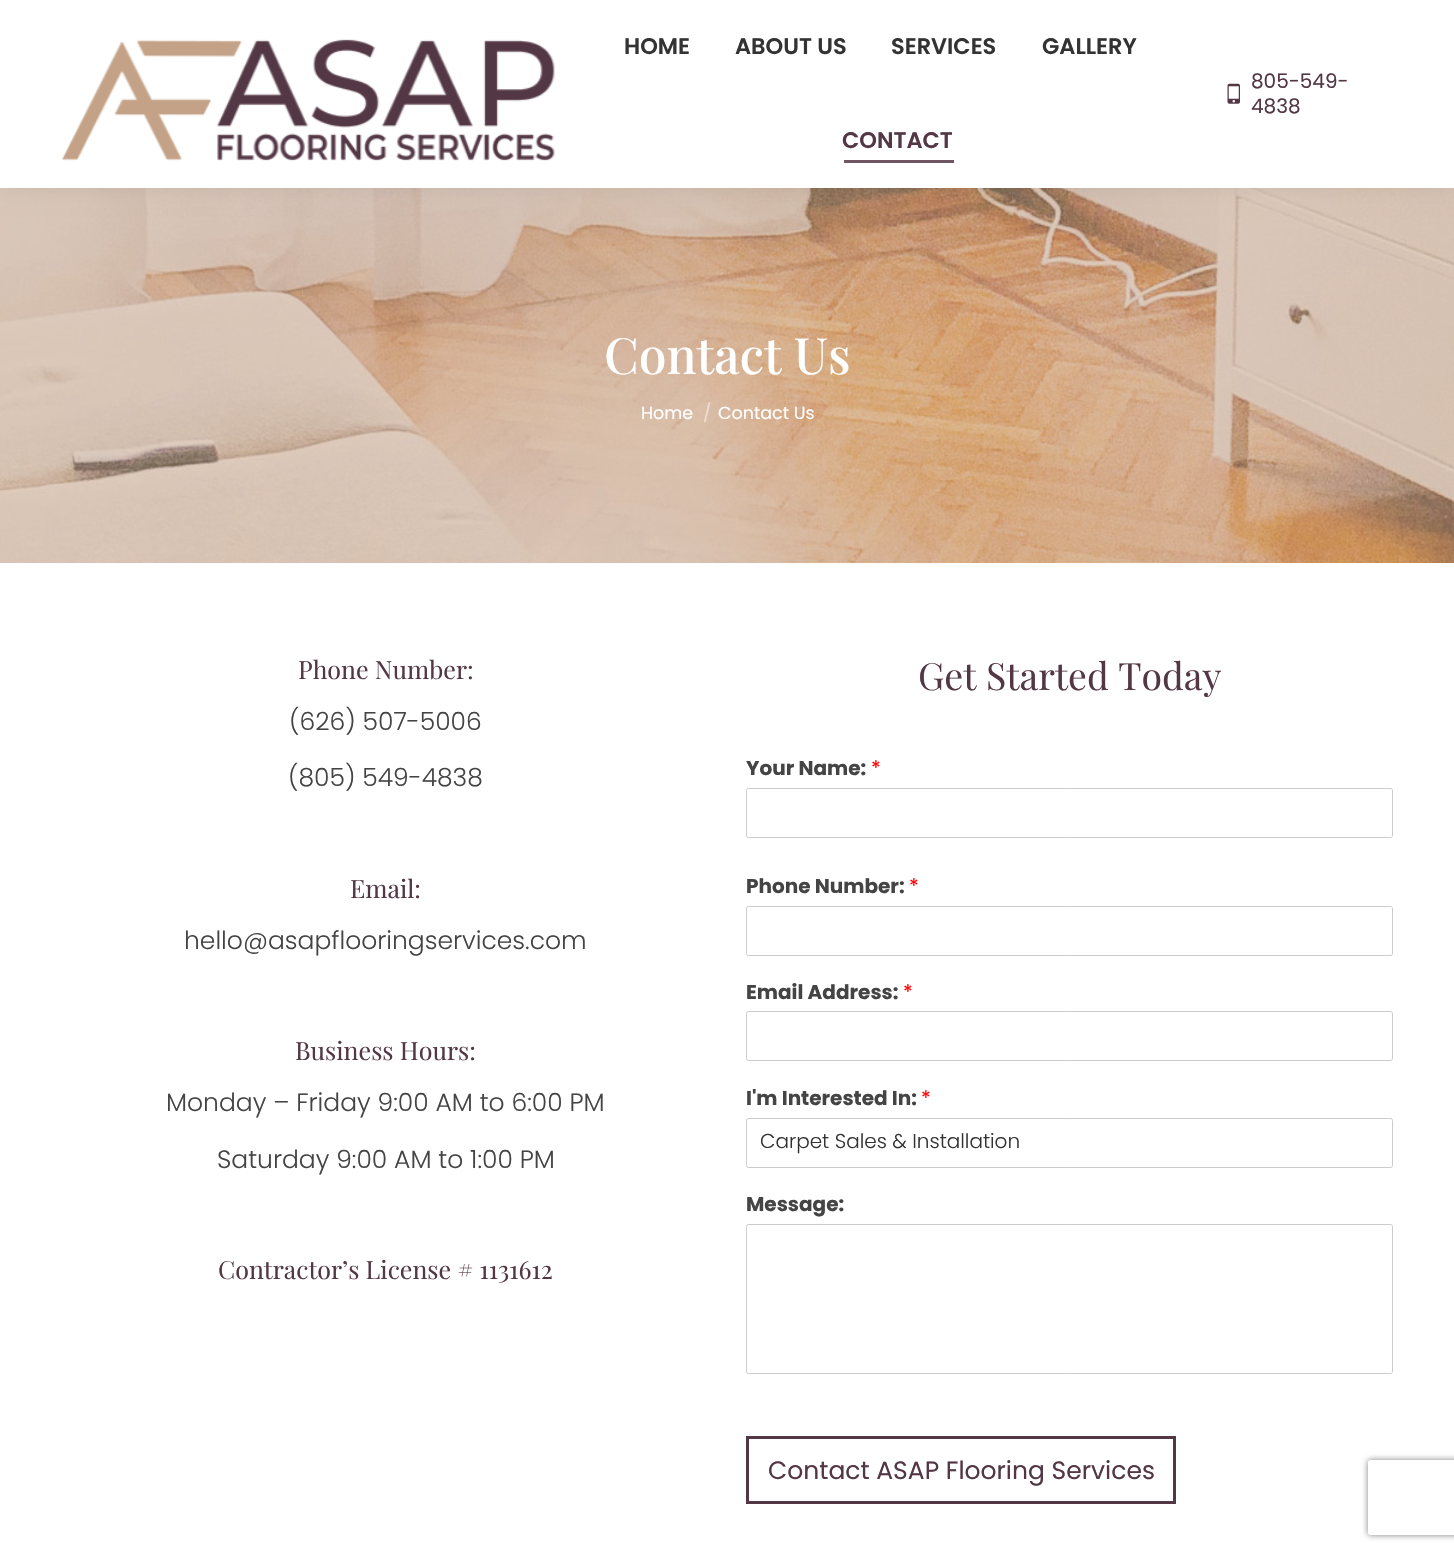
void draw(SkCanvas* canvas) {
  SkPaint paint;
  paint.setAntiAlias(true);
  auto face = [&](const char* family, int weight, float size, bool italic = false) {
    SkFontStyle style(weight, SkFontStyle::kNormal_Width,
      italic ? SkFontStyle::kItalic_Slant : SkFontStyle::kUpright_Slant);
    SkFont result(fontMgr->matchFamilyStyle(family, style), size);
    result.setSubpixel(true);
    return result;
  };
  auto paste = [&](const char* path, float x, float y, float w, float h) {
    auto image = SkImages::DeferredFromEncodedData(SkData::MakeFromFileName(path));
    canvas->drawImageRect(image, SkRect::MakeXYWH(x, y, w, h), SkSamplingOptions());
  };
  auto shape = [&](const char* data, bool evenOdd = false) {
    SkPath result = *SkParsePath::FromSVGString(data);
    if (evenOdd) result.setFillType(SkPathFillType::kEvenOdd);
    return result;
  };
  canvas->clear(0xffffffff);
  paste("img/3.png", 0, 188, 1454, 375);
  paint.setColor(0x12000000);
  paint.setMaskFilter(SkMaskFilter::MakeBlur(kNormal_SkBlurStyle, 9.5f));
  canvas->drawRect(SkRect::MakeXYWH(-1, -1, 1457, 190), paint);
  paint.setMaskFilter(nullptr);
  paint.setColor(0xffffffff);
  canvas->drawRect(SkRect::MakeXYWH(0, 0, 1454, 188), paint);
  paste("img/1.png", 62, 39, 493, 122);
  paint.setColor(0xff6d5561);
  canvas->drawRect(SkRect::MakeXYWH(844, 160, 110, 3), paint);
  paste("img/2.png", 1227, 83, 13, 21);
  paint.setStroke(true);
  paint.setStrokeWidth(1);
  paint.setColor(0xffcccccc);
  canvas->drawRoundRect(SkRect::MakeXYWH(746.5f, 788.5f, 646, 49), 2, 2, paint);
  canvas->drawRoundRect(SkRect::MakeXYWH(746.5f, 906.5f, 646, 49), 2, 2, paint);
  canvas->drawRoundRect(SkRect::MakeXYWH(746.5f, 1011.5f, 646, 49), 2, 2, paint);
  canvas->drawRoundRect(SkRect::MakeXYWH(746.5f, 1118.5f, 646, 49), 2, 2, paint);
  canvas->drawRoundRect(SkRect::MakeXYWH(746.5f, 1224.5f, 646, 149), 2, 2, paint);
  paint.setStrokeWidth(3);
  paint.setColor(0xff533745);
  canvas->drawRect(SkRect::MakeXYWH(747.5f, 1437.5f, 427, 65), paint);
  canvas->save();
  canvas->clipPath(shape("M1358 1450H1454V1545H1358ZM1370.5 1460H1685.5C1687 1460 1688 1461 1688 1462.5V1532.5C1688 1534 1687 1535 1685.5 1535H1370.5C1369 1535 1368 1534 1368 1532.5V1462.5C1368 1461 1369 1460 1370.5 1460Z", true), true);
  paint.setStroke(false);
  paint.setColor(0xff808080);
  paint.setMaskFilter(SkMaskFilter::MakeBlur(kNormal_SkBlurStyle, 3));
  canvas->drawRoundRect(SkRect::MakeXYWH(1368, 1460, 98, 75), 2.5f, 2.5f, paint);
  paint.setMaskFilter(nullptr);
  canvas->restore();
  auto f0 = face("Poppins", 600, 22.5f);
  paint.setColor(0xff333333);
  {
    const struct { const char* s; float x, y; } items[] = {
      {"HOME", 624, 54},
      {"ABOUT US", 735, 54},
      {"SERVICES", 891, 54},
      {"GALLERY", 1042, 54},
    };
    for (auto [s, x, y] : items) {
      canvas->drawString(s, x, y, f0, paint);
    }
  }
  paint.setColor(0xff533745);
  canvas->drawString("CONTACT", 842, 148, f0, paint);
  auto f1 = face("Poppins", 400, 20);
  canvas->drawString("805-549-", 1251, 88, f1, paint);
  canvas->drawString("4838", 1251, 113, f1, paint);
  auto f2 = face("Playfair Display", 500, 50);
  paint.setColor(0xffffffff);
  canvas->drawString("Contact Us", 604, 374, f2, paint);
  auto f3 = face("Poppins", 400, 17.5f);
  canvas->drawString("Home", 641, 419, f3, paint);
  paint.setColor(0xffecded3);
  canvas->drawString("/", 703, 419, f3, paint);
  paint.setColor(0xffffffff);
  canvas->drawString("Contact Us", 718, 419, f3, paint);
  auto f4 = face("Playfair Display", 400, 25);
  paint.setColor(0xff533745);
  canvas->drawString("Phone Number:", 298, 679, f4, paint);
  auto f5 = face("Poppins", 300, 25);
  paint.setColor(0xff444444);
  canvas->drawString("(626) 507-5006", 289, 730, f5, paint);
  canvas->drawString("(805) 549-4838", 288, 786, f5, paint);
  paint.setColor(0xff533745);
  canvas->drawString("Email:", 350, 898, f4, paint);
  paint.setColor(0xff444444);
  canvas->drawString("hello@asapflooringservices.com", 184, 949, f5, paint);
  paint.setColor(0xff533745);
  canvas->drawString("Business Hours:", 295, 1060, f4, paint);
  paint.setColor(0xff444444);
  canvas->drawString("Monday – Friday 9:00 AM to 6:00 PM", 166, 1111, f5, paint);
  canvas->drawString("Saturday 9:00 AM to 1:00 PM", 217, 1168, f5, paint);
  paint.setColor(0xff533745);
  canvas->drawString("Contractor’s License # 1131612", 218, 1279, f4, paint);
  auto f6 = face("Playfair Display", 400, 37.5f);
  canvas->drawString("Get Started Today", 918, 690, f6, paint);
  auto f7 = face("Poppins", 700, 20);
  paint.setColor(0xff444444);
  canvas->drawString("Your Name:", 746, 775, f7, paint);
  paint.setColor(0xffff0000);
  canvas->drawString("*", 871, 775, f1, paint);
  paint.setColor(0xff444444);
  canvas->drawString("Phone Number:", 746, 893, f7, paint);
  paint.setColor(0xffff0000);
  canvas->drawString("*", 909, 893, f1, paint);
  paint.setColor(0xff444444);
  canvas->drawString("Email Address:", 746, 999, f7, paint);
  paint.setColor(0xffff0000);
  canvas->drawString("*", 903, 999, f1, paint);
  paint.setColor(0xff444444);
  canvas->drawString("I'm Interested In:", 746, 1105, f7, paint);
  paint.setColor(0xffff0000);
  canvas->drawString("*", 921, 1105, f1, paint);
  auto f8 = face("Poppins", 300, 20);
  paint.setColor(0xff333333);
  canvas->drawString("Carpet Sales & Installation", 760, 1148, f8, paint);
  paint.setColor(0xff444444);
  canvas->drawString("Message:", 746, 1211, f7, paint);
  auto f9 = face("Poppins", 400, 25);
  paint.setColor(0xff533745);
  canvas->drawString("Contact ASAP Flooring Services", 768, 1479, f9, paint);
}
